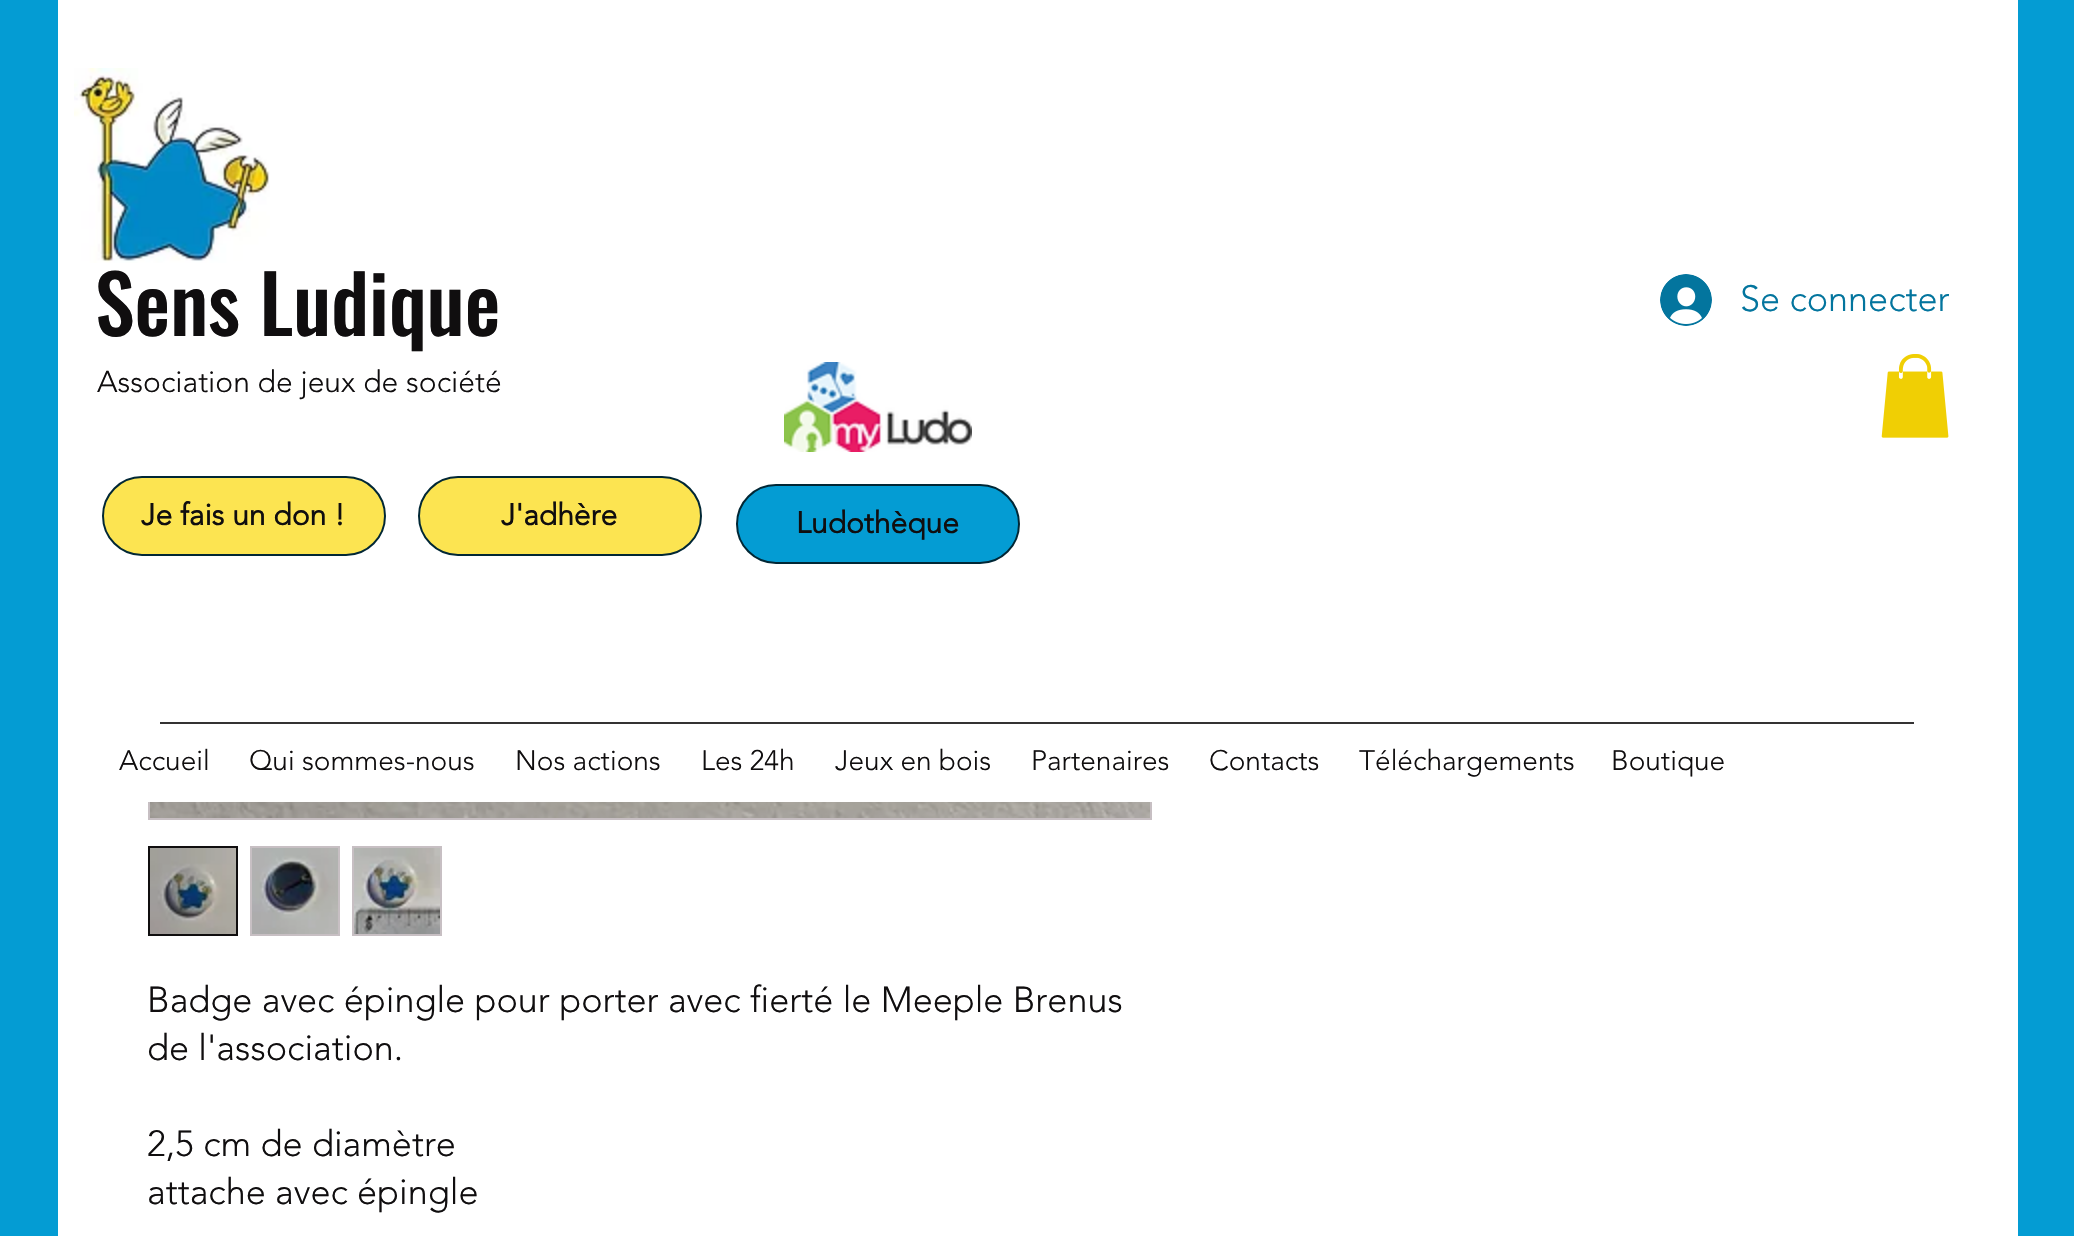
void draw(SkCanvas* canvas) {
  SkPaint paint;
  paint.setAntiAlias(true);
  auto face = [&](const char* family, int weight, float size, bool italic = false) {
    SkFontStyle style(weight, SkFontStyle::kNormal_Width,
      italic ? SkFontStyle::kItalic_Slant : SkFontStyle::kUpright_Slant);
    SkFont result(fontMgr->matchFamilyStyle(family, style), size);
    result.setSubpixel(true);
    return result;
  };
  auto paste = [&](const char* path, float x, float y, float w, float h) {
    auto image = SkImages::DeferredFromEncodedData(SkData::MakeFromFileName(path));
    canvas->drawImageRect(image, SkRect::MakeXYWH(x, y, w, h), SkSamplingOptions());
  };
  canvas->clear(0xff049cd3);
  paint.setColor(0xffffffff);
  canvas->drawRect(SkRect::MakeXYWH(58, 802, 1960, 434), paint);
  paint.setStroke(true);
  paint.setStrokeWidth(2);
  paint.setColor(0xffc7bfc3);
  canvas->drawRect(SkRect::MakeXYWH(149, -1, 1002, 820), paint);
  paint.setStroke(false);
  paint.setColor(0xff049cd3);
  canvas->drawRect(SkRect::MakeXYWH(148, 0, 1004, 802), paint);
  paint.setColor(0xffffffff);
  canvas->drawRect(SkRect::MakeXYWH(58, 0, 1960, 802), paint);
  paste("img/1.png", 74, 68, 196, 195);
  paint.setColor(0xfffce451);
  canvas->drawRoundRect(SkRect::MakeXYWH(103, 477, 282, 78), 39, 39, paint);
  paint.setStroke(true);
  paint.setColor(0xff012735);
  canvas->drawRoundRect(SkRect::MakeXYWH(103, 477, 282, 78), 39, 39, paint);
  paint.setStroke(false);
  paint.setColor(0xfffce451);
  canvas->drawRoundRect(SkRect::MakeXYWH(419, 477, 282, 78), 39, 39, paint);
  paint.setStroke(true);
  paint.setColor(0xff012735);
  canvas->drawRoundRect(SkRect::MakeXYWH(419, 477, 282, 78), 39, 39, paint);
  paste("img/2.png", 1660, 274, 52, 52);
  paste("img/3.png", 784, 362, 188, 90);
  paste("img/4.png", 1881, 354, 68, 84);
  paint.setStroke(false);
  paint.setColor(0xff049cd3);
  canvas->drawRoundRect(SkRect::MakeXYWH(737, 485, 282, 78), 39, 39, paint);
  paint.setStroke(true);
  paint.setColor(0xff012735);
  canvas->drawRoundRect(SkRect::MakeXYWH(737, 485, 282, 78), 39, 39, paint);
  paint.setStroke(false);
  paint.setColor(0xff343233);
  canvas->drawRect(SkRect::MakeXYWH(160, 722, 1754, 2), paint);
  paste("img/5.png", 150, 802, 1000, 16);
  paint.setStroke(true);
  paint.setColor(0xff100e0f);
  canvas->drawRect(SkRect::MakeXYWH(149, 847, 88, 88), paint);
  paste("img/6.png", 150, 848, 86, 86);
  paint.setStroke(false);
  paint.setColor(0xffc7bfc3);
  canvas->drawRect(SkRect::MakeXYWH(250, 846, 90, 90), paint);
  paste("img/7.png", 252, 848, 86, 86);
  canvas->drawRect(SkRect::MakeXYWH(352, 846, 90, 90), paint);
  paste("img/8.png", 354, 848, 86, 86);
  auto f0 = face("Oswald", 500, 80);
  paint.setColor(0xff100e0f);
  canvas->drawString("Sens Ludique", 95, 336, f0, paint);
  auto f1 = face("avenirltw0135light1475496", 300, 30);
  canvas->drawString("Association de jeux de société", 97, 392, f1, paint);
  auto f2 = face("avenirltw0135light1475496", 700, 30);
  canvas->drawString("Je fais un don !", 141, 525, f2, paint);
  canvas->drawString("J'adhère", 501, 525, f2, paint);
  auto f3 = face("avenirltw0135light1475496", 300, 36);
  paint.setColor(0xff03759e);
  canvas->drawString("Se connecter", 1740, 311, f3, paint);
  paint.setColor(0xff100e0f);
  canvas->drawString("Ludothèque", 796, 533, f2, paint);
  auto f4 = face("avenirltw0135light1475496", 300, 28);
  {
    const struct { const char* s; float x, y; } items[] = {
      {"Accueil", 119, 770},
      {"Qui sommes-nous", 249, 770},
      {"Nos actions", 515, 770},
      {"Les 24h", 701, 770},
      {"Jeux en bois", 835, 770},
      {"Partenaires", 1031, 770},
      {"Contacts", 1209, 770},
      {"Téléchargements", 1359, 770},
      {"Boutique", 1611, 770},
    };
    for (auto [s, x, y] : items) {
      canvas->drawString(s, x, y, f4, paint);
    }
  }
  {
    const struct { const char* s; float x, y; } items[] = {
      {"Badge avec épingle pour porter avec fierté le Meeple Brenus", 147, 1012},
      {"de l'association.", 147, 1060},
      {"2,5 cm de diamètre", 147, 1156},
      {"attache avec épingle", 147, 1204},
    };
    for (auto [s, x, y] : items) {
      canvas->drawString(s, x, y, f3, paint);
    }
  }
}
